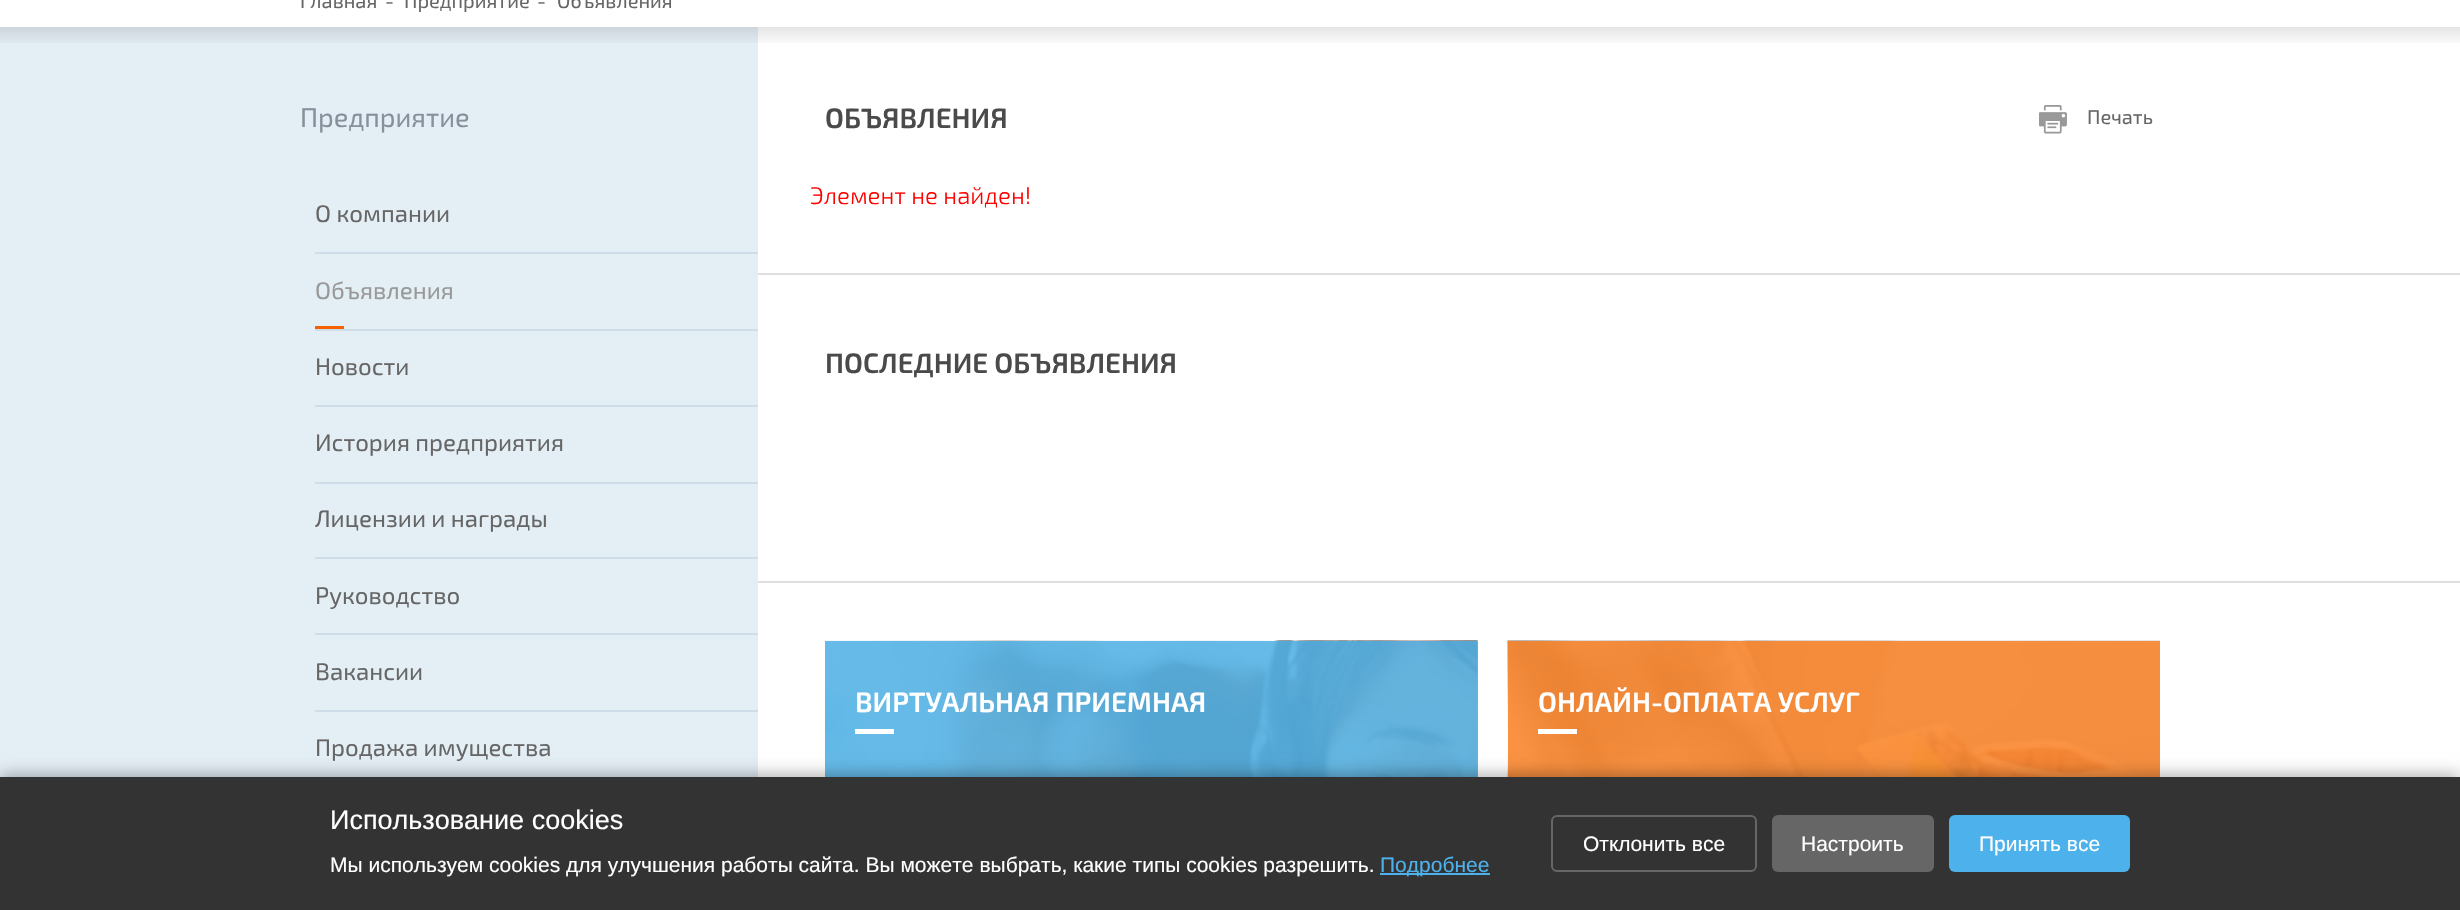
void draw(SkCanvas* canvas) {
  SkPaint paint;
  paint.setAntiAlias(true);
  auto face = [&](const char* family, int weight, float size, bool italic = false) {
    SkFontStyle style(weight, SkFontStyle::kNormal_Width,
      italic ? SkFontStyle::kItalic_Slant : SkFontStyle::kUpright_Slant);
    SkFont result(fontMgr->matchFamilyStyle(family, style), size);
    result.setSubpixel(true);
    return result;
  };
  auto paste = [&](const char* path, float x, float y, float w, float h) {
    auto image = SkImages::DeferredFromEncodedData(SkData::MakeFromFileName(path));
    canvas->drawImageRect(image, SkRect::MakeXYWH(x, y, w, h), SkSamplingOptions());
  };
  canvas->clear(0xffe4eef5);
  paint.setColor(0xffffffff);
  canvas->drawRect(SkRect::MakeXYWH(0, 0, 2460, 27), paint);
  canvas->drawRect(SkRect::MakeXYWH(758, 27, 1702, 750), paint);
  {
    const SkColor colors[] = {0x1a000000, 0x00000000};
    const float stops[] = {0, 1};
    const SkPoint ends[] = {{1230, 27}, {1230, 47}};
    paint.setShader(SkGradientShader::MakeLinear(ends, colors, stops, 2, SkTileMode::kClamp));
    paint.setAlpha(255);
  }
  canvas->drawRect(SkRect::MakeXYWH(0, 27, 2460, 16), paint);
  paint.setShader(nullptr);
  {
    const struct { float x, y, w, h; SkColor color; } items[] = {
      {315, 252, 443, 2, 0xffcfdde8},
      {315, 329, 443, 2, 0xffcfdde8},
      {315, 326, 29, 3, 0xfff66202},
      {315, 405, 443, 2, 0xffcfdde8},
      {315, 482, 443, 2, 0xffcfdde8},
      {315, 557, 443, 2, 0xffcfdde8},
      {315, 633, 443, 2, 0xffcfdde8},
      {315, 710, 443, 2, 0xffcfdde8},
    };
    for (auto [x, y, w, h, color] : items) {
      paint.setColor(color);
      canvas->drawRect(SkRect::MakeXYWH(x, y, w, h), paint);
    }
  }
  paste("img/1.png", 2039, 105, 28, 29);
  paint.setColor(0xffdedede);
  canvas->drawRect(SkRect::MakeXYWH(758, 273, 1702, 2), paint);
  canvas->drawRect(SkRect::MakeXYWH(758, 581, 1702, 2), paint);
  paste("img/2.png", 825, 640, 653, 137);
  paint.setColor(0xe657b4e6);
  canvas->drawRect(SkRect::MakeXYWH(825, 641, 653, 136), paint);
  paint.setColor(0xffffffff);
  canvas->drawRect(SkRect::MakeXYWH(855, 729, 39, 5), paint);
  paste("img/3.png", 1507, 640, 653, 137);
  canvas->drawRect(SkRect::MakeXYWH(1538, 729, 39, 5), paint);
  paint.setColor(0x4d000000);
  paint.setMaskFilter(SkMaskFilter::MakeBlur(kNormal_SkBlurStyle, 7.5f));
  canvas->drawRect(SkRect::MakeXYWH(0, 774, 2460, 134), paint);
  paint.setMaskFilter(nullptr);
  paint.setColor(0xff333333);
  canvas->drawRect(SkRect::MakeXYWH(0, 777, 2460, 133), paint);
  paint.setColor(0xff4db2ec);
  canvas->drawRect(SkRect::MakeXYWH(1380, 873, 110, 2), paint);
  paint.setStroke(true);
  paint.setStrokeWidth(2);
  paint.setColor(0xff666666);
  canvas->drawRoundRect(SkRect::MakeXYWH(1552, 816, 204, 55), 5, 5, paint);
  paint.setStroke(false);
  canvas->drawRoundRect(SkRect::MakeXYWH(1772, 815, 162, 57), 6, 6, paint);
  paint.setColor(0xff4db2ec);
  canvas->drawRoundRect(SkRect::MakeXYWH(1949, 815, 181, 57), 6, 6, paint);
  auto f0 = face("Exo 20", 400, 20);
  paint.setColor(0xff666666);
  {
    const struct { const char* s; float x, y; } items[] = {
      {"Главная", 300, 8},
      {"-", 385, 8},
      {"Предприятие", 404, 8},
      {"-", 537, 8},
      {"Объявления", 557, 8},
    };
    for (auto [s, x, y] : items) {
      canvas->drawString(s, x, y, f0, paint);
    }
  }
  auto f1 = face("Exo 20", 400, 27);
  paint.setColor(0xff85919c);
  canvas->drawString("Предприятие", 300, 127, f1, paint);
  auto f2 = face("Exo 20", 400, 24);
  paint.setColor(0xff666666);
  canvas->drawString("О компании", 315, 222, f2, paint);
  paint.setColor(0xff999999);
  canvas->drawString("Объявления", 315, 299, f2, paint);
  paint.setColor(0xff666666);
  {
    const struct { const char* s; float x, y; } items[] = {
      {"Новости", 315, 375},
      {"История предприятия", 315, 451},
      {"Лицензии и награды", 315, 527},
      {"Руководство", 315, 604},
      {"Вакансии", 315, 680},
      {"Продажа имущества", 315, 756},
    };
    for (auto [s, x, y] : items) {
      canvas->drawString(s, x, y, f2, paint);
    }
  }
  auto f3 = face("Exo 20", 600, 28);
  paint.setColor(0xff4a4a4a);
  canvas->drawString("ОБЪЯВЛЕНИЯ", 825, 128, f3, paint);
  paint.setColor(0xff666666);
  canvas->drawString("Печать", 2087, 124, f0, paint);
  auto f4 = face("Exo 20", 300, 24);
  paint.setColor(0xffff0000);
  canvas->drawString("Элемент не найден!", 810, 204, f4, paint);
  paint.setColor(0xff4a4a4a);
  canvas->drawString("ПОСЛЕДНИЕ ОБЪЯВЛЕНИЯ", 825, 373, f3, paint);
  paint.setColor(0xffffffff);
  canvas->drawString("ВИРТУАЛЬНАЯ ПРИЕМНАЯ", 855, 712, f3, paint);
  canvas->drawString("ОНЛАЙН-ОПЛАТА УСЛУГ", 1538, 712, f3, paint);
  auto f5 = face("Liberation Sans", 400, 27);
  canvas->drawString("Использование cookies", 330, 829, f5, paint);
  auto f6 = face("Liberation Sans", 400, 21);
  canvas->drawString("Мы используем cookies для улучшения работы сайта. Вы можете выбрать, какие типы cookies разрешить.", 330, 872, f6, paint);
  paint.setColor(0xff4db2ec);
  canvas->drawString("Подробнее", 1380, 872, f6, paint);
  paint.setColor(0xffffffff);
  {
    const struct { const char* s; float x, y; } items[] = {
      {"Отклонить все", 1583, 851},
      {"Настроить", 1801, 851},
      {"Принять все", 1979, 851},
    };
    for (auto [s, x, y] : items) {
      canvas->drawString(s, x, y, f6, paint);
    }
  }
}
